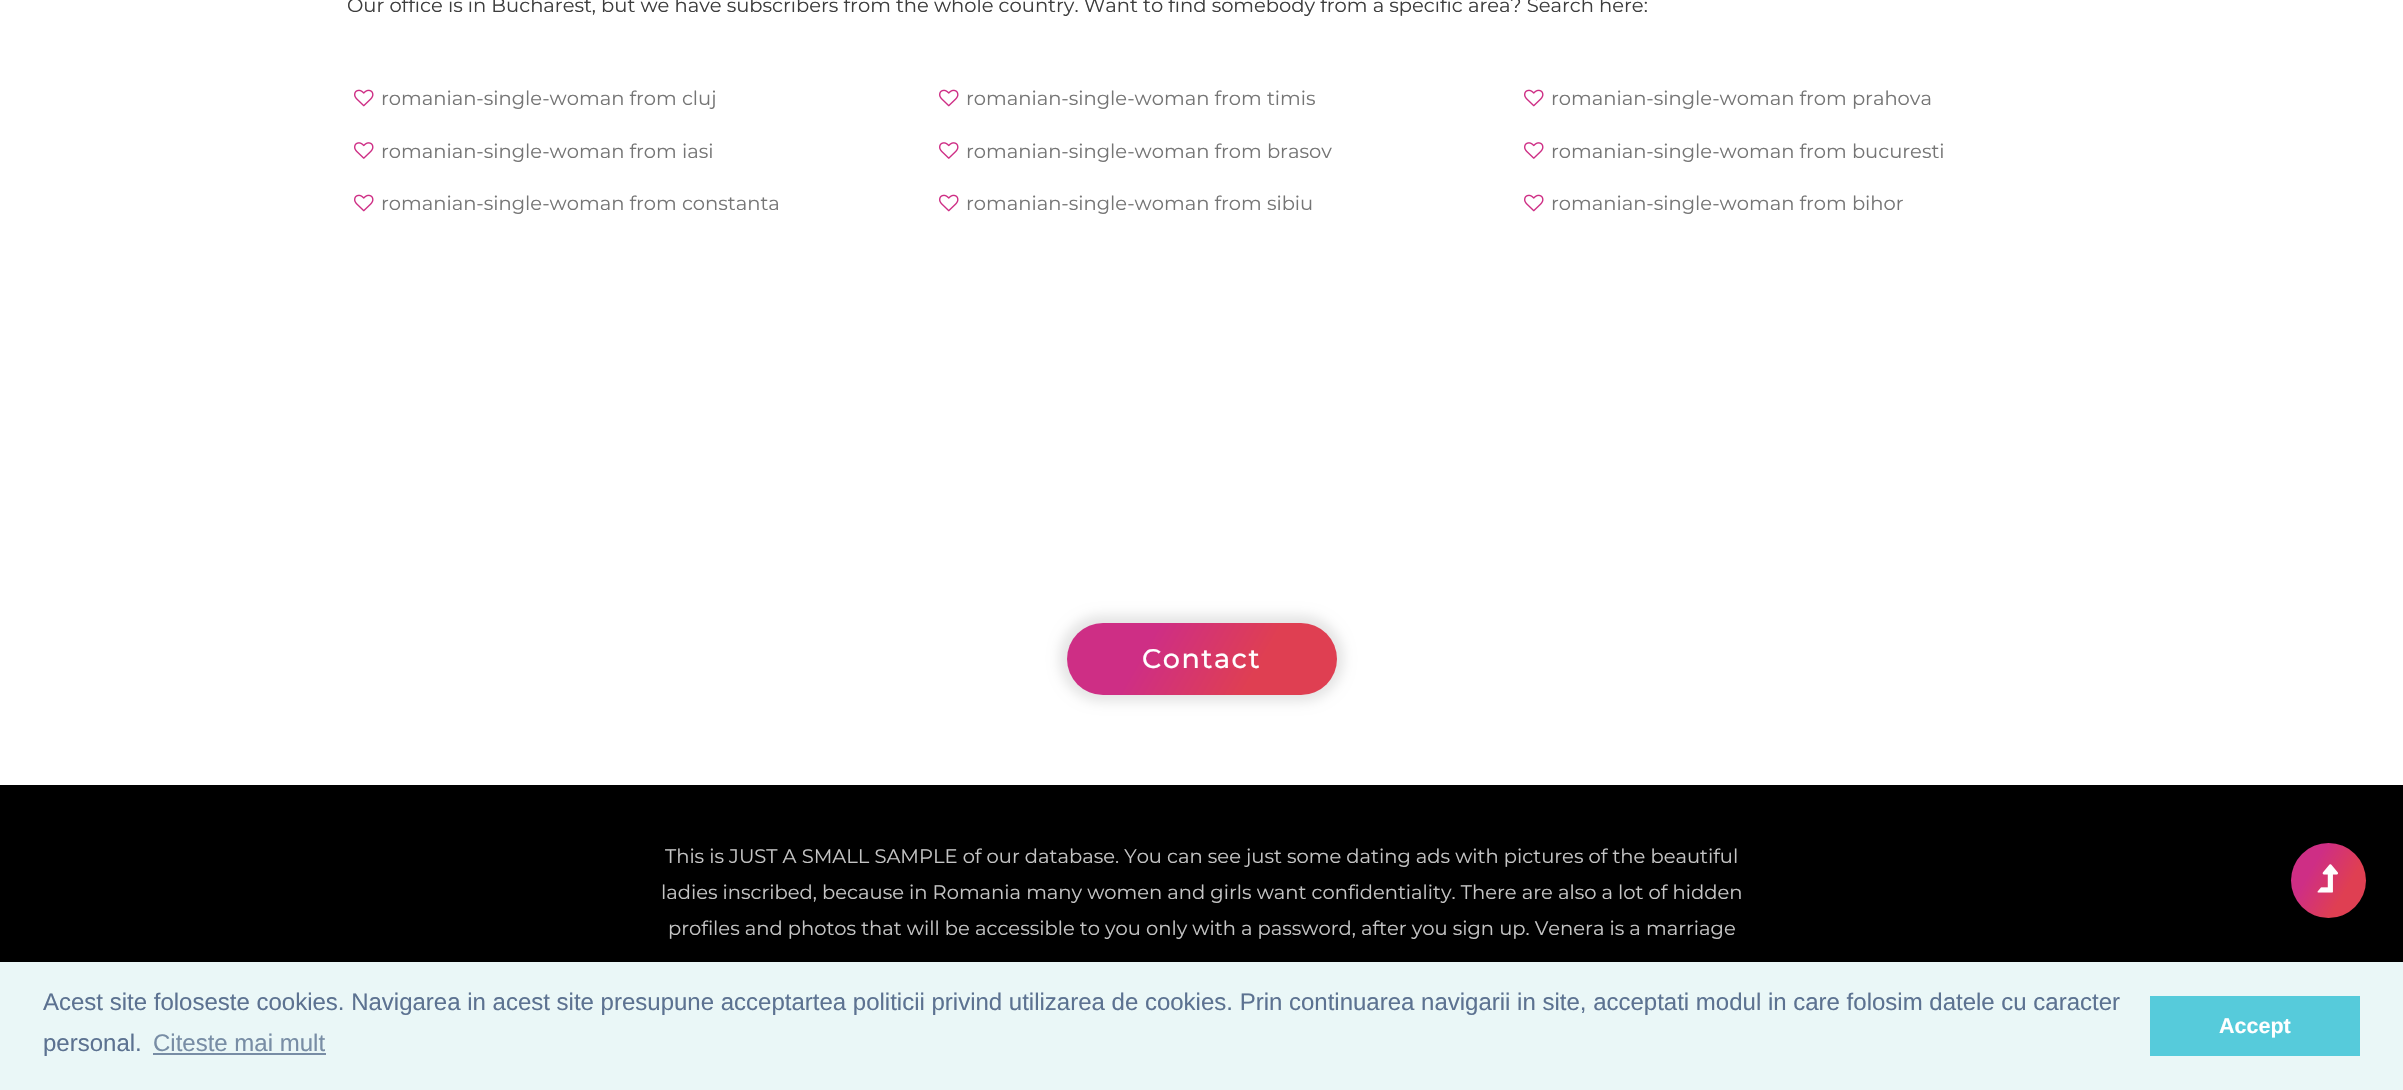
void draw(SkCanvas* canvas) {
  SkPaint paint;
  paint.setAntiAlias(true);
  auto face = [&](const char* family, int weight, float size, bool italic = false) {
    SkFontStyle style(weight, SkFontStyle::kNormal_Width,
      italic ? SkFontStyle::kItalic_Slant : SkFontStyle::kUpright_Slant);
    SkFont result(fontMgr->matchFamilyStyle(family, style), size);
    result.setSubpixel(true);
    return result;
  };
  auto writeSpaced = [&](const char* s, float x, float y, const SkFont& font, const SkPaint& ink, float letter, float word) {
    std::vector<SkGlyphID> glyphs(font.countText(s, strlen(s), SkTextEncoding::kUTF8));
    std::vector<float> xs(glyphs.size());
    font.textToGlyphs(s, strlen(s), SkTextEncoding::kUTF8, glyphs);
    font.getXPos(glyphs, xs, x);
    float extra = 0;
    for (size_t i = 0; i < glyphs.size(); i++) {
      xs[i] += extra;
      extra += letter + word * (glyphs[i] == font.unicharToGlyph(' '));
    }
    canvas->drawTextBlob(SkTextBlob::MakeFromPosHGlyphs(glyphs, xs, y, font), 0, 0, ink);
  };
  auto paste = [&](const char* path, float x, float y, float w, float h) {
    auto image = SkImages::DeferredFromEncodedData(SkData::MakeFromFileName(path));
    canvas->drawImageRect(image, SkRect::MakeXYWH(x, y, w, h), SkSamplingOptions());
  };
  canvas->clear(0xffffffff);
  paste("img/1.png", 354, 89, 20, 18);
  paste("img/2.png", 354, 142, 20, 17);
  paste("img/1.png", 354, 194, 20, 18);
  paste("img/1.png", 939, 89, 20, 18);
  paste("img/2.png", 939, 142, 20, 17);
  paste("img/1.png", 939, 194, 20, 18);
  paste("img/1.png", 1524, 89, 20, 18);
  paste("img/2.png", 1524, 142, 20, 17);
  paste("img/1.png", 1524, 194, 20, 18);
  paint.setColor(0x1a000000);
  paint.setMaskFilter(SkMaskFilter::MakeBlur(kNormal_SkBlurStyle, 6));
  canvas->drawRoundRect(SkRect::MakeXYWH(1059, 615, 285, 87), 43.5f, 43.5f, paint);
  paint.setMaskFilter(nullptr);
  {
    const SkColor colors[] = {0xffce2e85, 0xffdf3f52};
    const float stops[] = {0.3f, 0.7f};
    const SkPoint ends[] = {{1085, 591}, {1318, 726}};
    paint.setShader(SkGradientShader::MakeLinear(ends, colors, stops, 2, SkTileMode::kClamp));
    paint.setAlpha(255);
  }
  canvas->drawRoundRect(SkRect::MakeXYWH(1067, 623, 270, 72), 36, 36, paint);
  paint.setShader(nullptr);
  paint.setColor(0xff000000);
  canvas->drawRect(SkRect::MakeXYWH(0, 785, 2403, 177), paint);
  {
    const SkColor colors[] = {0xffce2e85, 0xffdf3f52};
    const float stops[] = {0.3f, 0.7f};
    const SkPoint ends[] = {{2284, 855}, {2372, 906}};
    paint.setShader(SkGradientShader::MakeLinear(ends, colors, stops, 2, SkTileMode::kClamp));
    paint.setAlpha(255);
  }
  canvas->drawCircle(2328.5f, 880.5f, 37.5f, paint);
  paste("img/3.png", 2317, 864, 21, 29);
  paint.setShader(nullptr);
  {
    const struct { float x, y, w, h; SkColor color; } items[] = {
      {0, 962, 2403, 128, 0xffeaf7f7},
      {153, 1053, 173, 2, 0xff788da5},
      {2150, 996, 210, 60, 0xff56cbdb},
    };
    for (auto [x, y, w, h, color] : items) {
      paint.setColor(color);
      canvas->drawRect(SkRect::MakeXYWH(x, y, w, h), paint);
    }
  }
  auto f0 = face("Montserrat", 400, 19.5f);
  paint.setColor(0xff3d3d3d);
  canvas->drawString("Our office is in Bucharest, but we have subscribers from the whole country. Want to find somebody from a specific area? Search here:", 347, 12, f0, paint);
  paint.setColor(0xff757575);
  {
    const struct { const char* s; float x, y; } items[] = {
      {"romanian-single-woman from cluj", 381, 105},
      {"romanian-single-woman from iasi", 381, 158},
      {"romanian-single-woman from constanta", 381, 210},
      {"romanian-single-woman from timis", 966, 105},
      {"romanian-single-woman from brasov", 966, 158},
      {"romanian-single-woman from sibiu", 966, 210},
      {"romanian-single-woman from prahova", 1551, 105},
      {"romanian-single-woman from bucuresti", 1551, 158},
      {"romanian-single-woman from bihor", 1551, 210},
    };
    for (auto [s, x, y] : items) {
      canvas->drawString(s, x, y, f0, paint);
    }
  }
  auto f1 = face("Montserrat", 500, 27);
  paint.setColor(0xffffffff);
  writeSpaced("Contact", 1142, 668, f1, paint, 1.5f, 0);
  paint.setColor(0xffc5c5c5);
  {
    const struct { const char* s; float x, y; } items[] = {
      {"This is JUST A SMALL SAMPLE of our database. You can see just some dating ads with pictures of the beautiful", 665, 863},
      {"ladies inscribed, because in Romania many women and girls want confidentiality. There are also a lot of hidden", 661, 899},
      {"profiles and photos that will be accessible to you only with a password, after you sign up. Venera is a marriage", 668, 935},
    };
    for (auto [s, x, y] : items) {
      canvas->drawString(s, x, y, f0, paint);
    }
  }
  auto f2 = face("Liberation Sans", 400, 24);
  paint.setColor(0xff5c7291);
  canvas->drawString("Acest site foloseste cookies. Navigarea in acest site presupune acceptartea politicii privind utilizarea de cookies. Prin continuarea navigarii in site, acceptati modul in care folosim datele cu caracter", 43, 1010, f2, paint);
  canvas->drawString("personal.", 43, 1051, f2, paint);
  paint.setColor(0xff788da5);
  canvas->drawString("Citeste mai mult", 153, 1051, f2, paint);
  auto f3 = face("Liberation Sans", 700, 21.5f);
  paint.setColor(0xffffffff);
  canvas->drawString("Accept", 2219, 1033, f3, paint);
}
